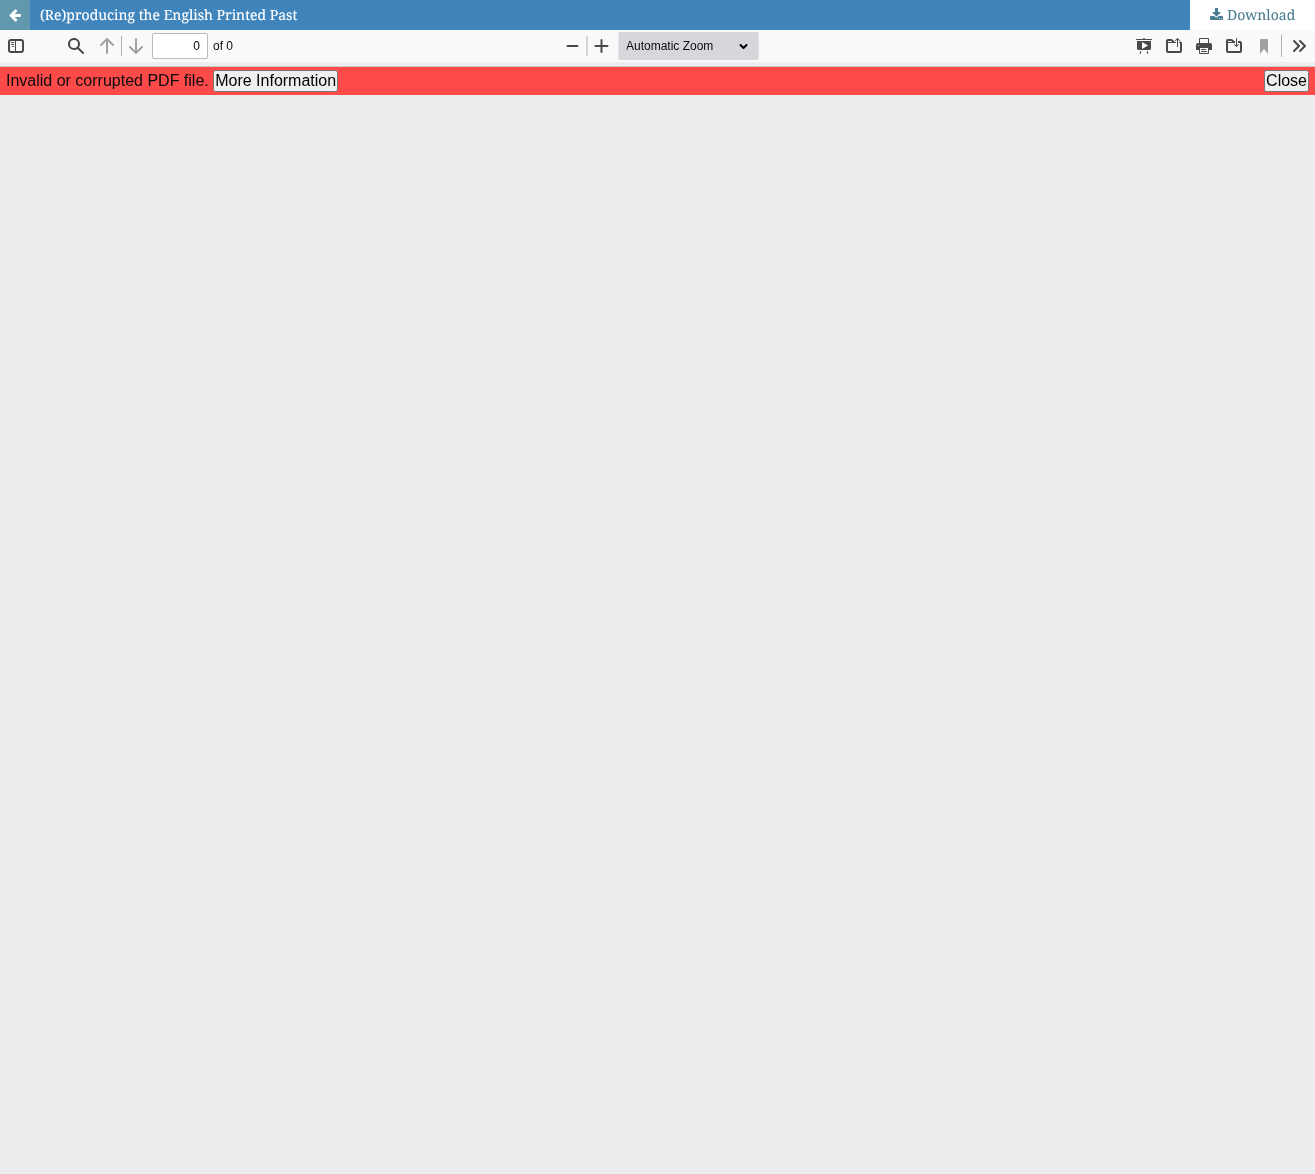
void draw(SkCanvas* canvas) {
  SkPaint paint;
  paint.setAntiAlias(true);
  auto face = [&](const char* family, int weight, float size, bool italic = false) {
    SkFontStyle style(weight, SkFontStyle::kNormal_Width,
      italic ? SkFontStyle::kItalic_Slant : SkFontStyle::kUpright_Slant);
    SkFont result(fontMgr->matchFamilyStyle(family, style), size);
    result.setSubpixel(true);
    return result;
  };
  auto paste = [&](const char* path, float x, float y, float w, float h) {
    auto image = SkImages::DeferredFromEncodedData(SkData::MakeFromFileName(path));
    canvas->drawImageRect(image, SkRect::MakeXYWH(x, y, w, h), SkSamplingOptions());
  };
  canvas->clear(0xffffffff);
  paint.setColor(0xff4084bc);
  canvas->drawRect(SkRect::MakeXYWH(30, 0, 1160, 30), paint);
  paint.setColor(0xff6298ae);
  canvas->drawRect(SkRect::MakeXYWH(0, 0, 30, 30), paint);
  paste("img/1.png", 9, 9, 12, 13);
  paste("img/2.png", 1210, 8, 13, 12);
  paste("img/3.png", 0, 30, 1315, 1144);
  auto f0 = face("Noto Serif", 400, 14);
  paint.setColor(0xffffffff);
  canvas->drawString("(Re)producing the English Printed Past", 40, 20, f0, paint);
  paint.setColor(0xff4b7d92);
  canvas->drawString("Download", 1227, 20, f0, paint);
}
